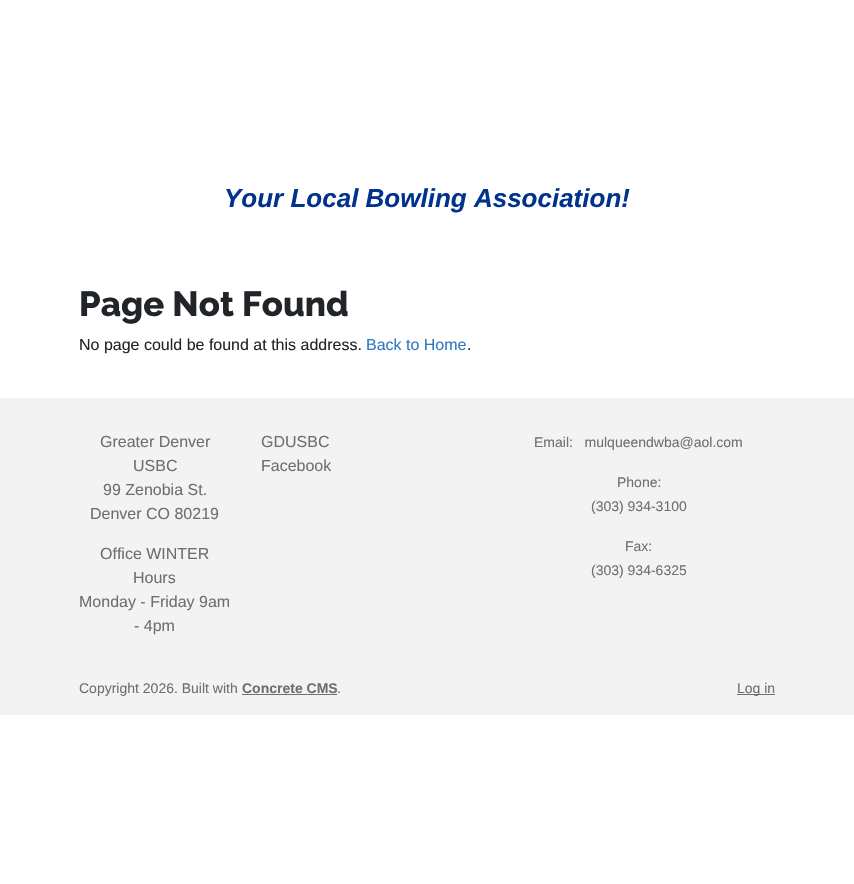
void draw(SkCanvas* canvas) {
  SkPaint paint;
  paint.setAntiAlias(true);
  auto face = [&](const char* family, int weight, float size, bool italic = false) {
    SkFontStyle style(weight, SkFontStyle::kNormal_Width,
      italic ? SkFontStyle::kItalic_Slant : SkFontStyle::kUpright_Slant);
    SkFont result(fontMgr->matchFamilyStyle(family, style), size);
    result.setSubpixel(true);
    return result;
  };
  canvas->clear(0xffffffff);
  {
    const struct { float x, y, w, h; SkColor color; } items[] = {
      {0, 398, 854, 317, 0xfff3f3f3},
      {242, 694, 95, 1, 0xff6b7075},
      {737, 694, 38, 1, 0xff6b7075},
    };
    for (auto [x, y, w, h, color] : items) {
      paint.setColor(color);
      canvas->drawRect(SkRect::MakeXYWH(x, y, w, h), paint);
    }
  }
  auto f0 = face("Liberation Sans", 700, 26, true);
  paint.setColor(0xff01338c);
  canvas->drawString("Your Local Bowling Association!", 224, 207, f0, paint);
  auto f1 = face("Raleway", 100, 34.75f);
  paint.setColor(0xff212529);
  canvas->drawString("Page Not Found", 79, 316, f1, paint);
  auto f2 = face("Liberation Sans", 400, 16);
  canvas->drawString("No page could be found at this address.", 79, 350, f2, paint);
  paint.setColor(0xff2d7ac0);
  canvas->drawString("Back to Home", 366, 350, f2, paint);
  paint.setColor(0xff212529);
  canvas->drawString(".", 467, 350, f2, paint);
  paint.setColor(0xff6b7075);
  {
    const struct { const char* s; float x, y; } items[] = {
      {"Greater Denver", 100, 447},
      {"USBC", 133, 471},
      {"99 Zenobia St.", 103, 495},
      {"Denver CO 80219", 90, 519},
      {"Office WINTER", 100, 559},
      {"Hours", 133, 583},
      {"Monday - Friday 9am", 79, 607},
      {"- 4pm", 134, 631},
      {"GDUSBC", 261, 447},
      {"Facebook", 261, 471},
    };
    for (auto [s, x, y] : items) {
      canvas->drawString(s, x, y, f2, paint);
    }
  }
  auto f3 = face("Liberation Sans", 400, 14);
  {
    const struct { const char* s; float x, y; } items[] = {
      {"Email:   mulqueendwba@aol.com", 534, 447},
      {"Phone:", 617, 487},
      {"(303) 934-3100", 591, 511},
      {"Fax:", 625, 551},
      {"(303) 934-6325", 591, 575},
      {"Copyright 2026. Built with", 79, 693},
    };
    for (auto [s, x, y] : items) {
      canvas->drawString(s, x, y, f3, paint);
    }
  }
  auto f4 = face("Liberation Sans", 700, 14);
  canvas->drawString("Concrete CMS", 242, 693, f4, paint);
  canvas->drawString(".", 337, 693, f3, paint);
  canvas->drawString("Log in", 737, 693, f3, paint);
}
